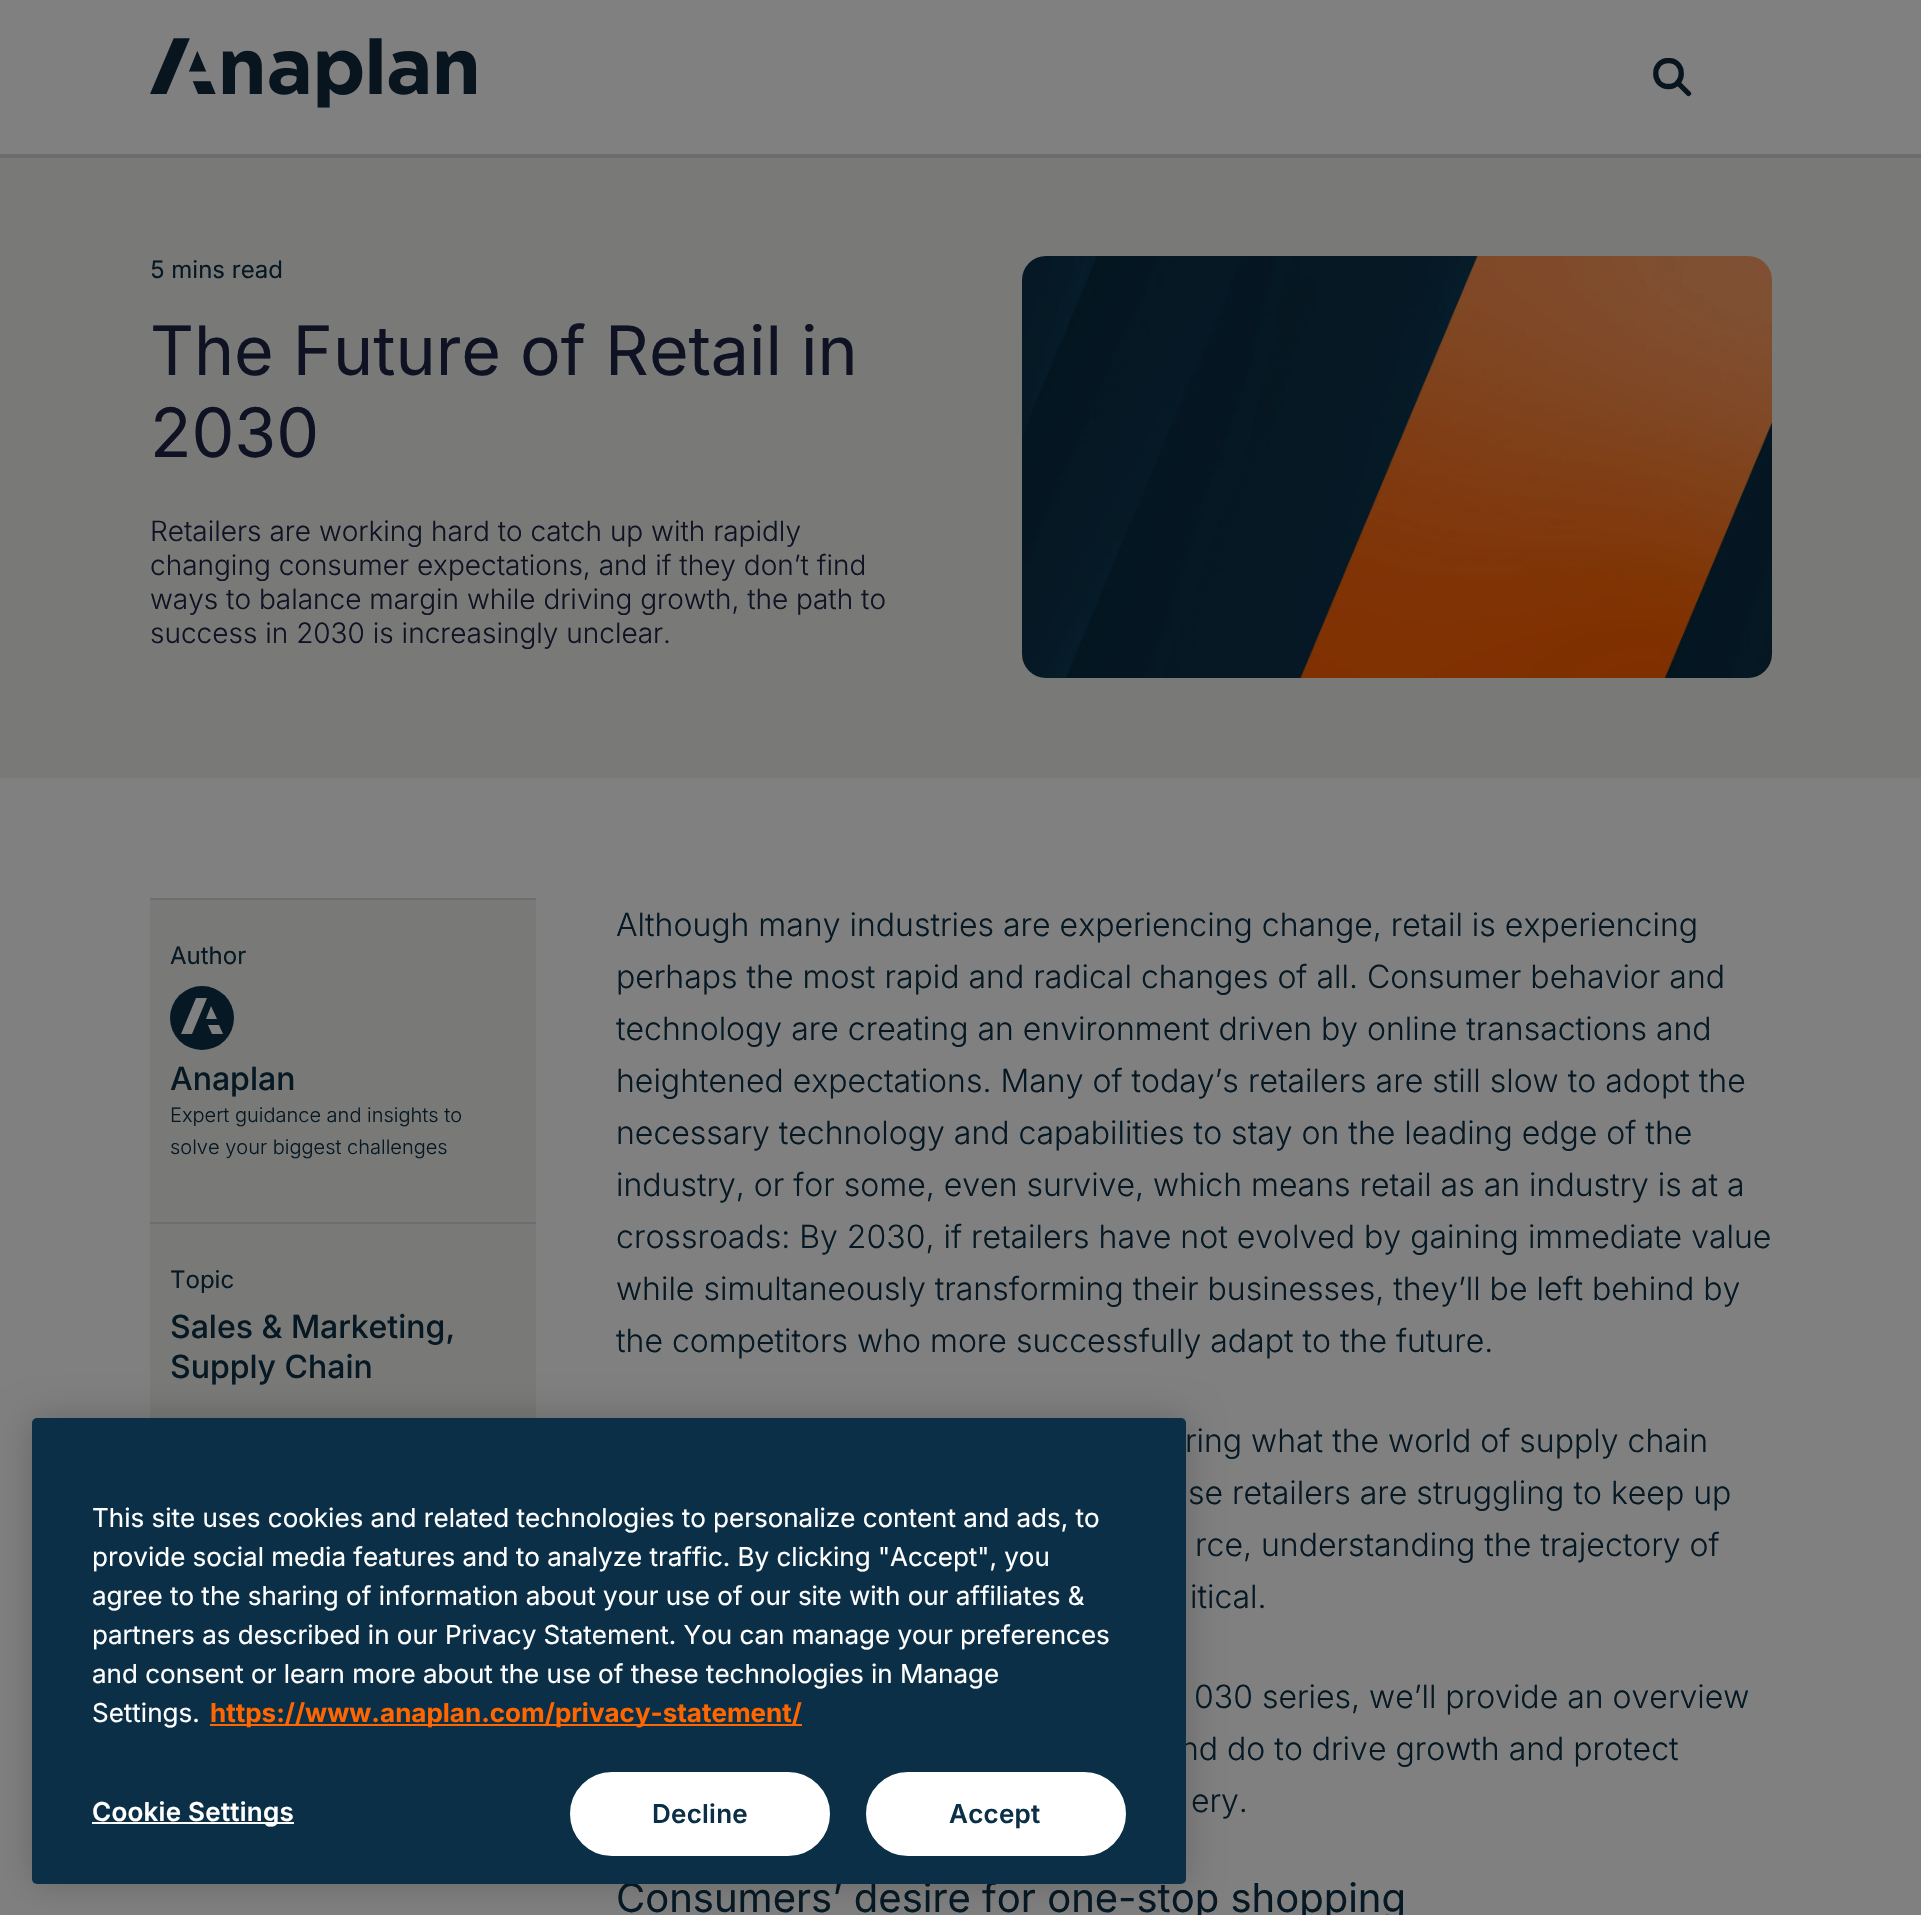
void draw(SkCanvas* canvas) {
  SkPaint paint;
  paint.setAntiAlias(true);
  auto face = [&](const char* family, int weight, float size, bool italic = false) {
    SkFontStyle style(weight, SkFontStyle::kNormal_Width,
      italic ? SkFontStyle::kItalic_Slant : SkFontStyle::kUpright_Slant);
    SkFont result(fontMgr->matchFamilyStyle(family, style), size);
    result.setSubpixel(true);
    return result;
  };
  auto writeSpaced = [&](const char* s, float x, float y, const SkFont& font, const SkPaint& ink, float letter, float word) {
    std::vector<SkGlyphID> glyphs(font.countText(s, strlen(s), SkTextEncoding::kUTF8));
    std::vector<float> xs(glyphs.size());
    font.textToGlyphs(s, strlen(s), SkTextEncoding::kUTF8, glyphs);
    font.getXPos(glyphs, xs, x);
    float extra = 0;
    for (size_t i = 0; i < glyphs.size(); i++) {
      xs[i] += extra;
      extra += letter + word * (glyphs[i] == font.unicharToGlyph(' '));
    }
    canvas->drawTextBlob(SkTextBlob::MakeFromPosHGlyphs(glyphs, xs, y, font), 0, 0, ink);
  };
  auto paste = [&](const char* path, float x, float y, float w, float h) {
    auto image = SkImages::DeferredFromEncodedData(SkData::MakeFromFileName(path));
    canvas->drawImageRect(image, SkRect::MakeXYWH(x, y, w, h), SkSamplingOptions());
  };
  auto shape = [&](const char* data, bool evenOdd = false) {
    SkPath result = *SkParsePath::FromSVGString(data);
    if (evenOdd) result.setFillType(SkPathFillType::kEvenOdd);
    return result;
  };
  canvas->clear(0xff808080);
  paint.setColor(0xff6b6d6f);
  canvas->drawRect(SkRect::MakeXYWH(0, 154, 1921, 4), paint);
  paste("img/1.png", 150, 38, 326, 70);
  canvas->save();
  canvas->clipRect(SkRect::MakeXYWH(1652, 58, 40, 40));
  paint.setStroke(true);
  paint.setStrokeWidth(5.3f);
  paint.setStrokeCap(SkPaint::kRound_Cap);
  paint.setColor(0xff08151f);
  canvas->drawPath(shape("M1668.5 86.5C1685.5 86.5 1685.5 60.5 1668.5 60.5C1651.5 60.5 1651.5 86.5 1668.5 86.5Z"), paint);
  canvas->restore();
  canvas->drawPath(shape("M1688.5 93.5L1677.5 82.5"), paint);
  paint.setStroke(false);
  paint.setColor(0xff797977);
  canvas->drawRect(SkRect::MakeXYWH(0, 158, 1921, 620), paint);
  paste("img/2.png", 1022, 256, 750, 422);
  canvas->drawRect(SkRect::MakeXYWH(150, 900, 386, 518), paint);
  paint.setColor(0xff6b6d6f);
  canvas->drawRect(SkRect::MakeXYWH(150, 898, 386, 2), paint);
  paint.setColor(0xff051823);
  canvas->drawCircle(202, 1018, 32, paint);
  paint.setColor(0xff808080);
  canvas->drawPath(shape("M196 998L181 1034H192L207 998ZM211 1006L206 1019H217ZM208 1025L212 1034H223L219 1025Z"), paint);
  paint.setColor(0xff6b6d6f);
  canvas->drawRect(SkRect::MakeXYWH(150, 1222, 386, 2), paint);
  paint.setColor(0x33000000);
  paint.setMaskFilter(SkMaskFilter::MakeBlur(kNormal_SkBlurStyle, 18));
  canvas->drawRoundRect(SkRect::MakeXYWH(32, 1418, 1154, 466), 5, 5, paint);
  paint.setMaskFilter(nullptr);
  auto f0 = face("Inter", 400, 24);
  paint.setColor(0xff051823);
  canvas->drawString("5 mins read", 150, 278, f0, paint);
  auto f1 = face("Inter", 400, 68);
  paint.setColor(0xff0e1223);
  canvas->drawString("The Future of Retail in", 150, 375, f1, paint);
  canvas->drawString("2030", 150, 457, f1, paint);
  auto f2 = face("Inter", 300, 28);
  {
    const struct { const char* s; float x, y; } items[] = {
      {"Retailers are working hard to catch up with rapidly", 150, 541},
      {"changing consumer expectations, and if they don’t find", 150, 575},
      {"ways to balance margin while driving growth, the path to", 150, 609},
      {"success in 2030 is increasingly unclear.", 150, 643},
    };
    for (auto [s, x, y] : items) {
      canvas->drawString(s, x, y, f2, paint);
    }
  }
  paint.setColor(0xff051823);
  canvas->drawString("Author", 170, 964, f0, paint);
  auto f3 = face("Inter", 500, 32);
  canvas->drawString("Anaplan", 170, 1090, f3, paint);
  auto f4 = face("Inter", 300, 20);
  canvas->drawString("Expert guidance and insights to", 170, 1122, f4, paint);
  canvas->drawString("solve your biggest challenges", 170, 1154, f4, paint);
  canvas->drawString("Topic", 170, 1288, f0, paint);
  canvas->drawString("Sales & Marketing,", 170, 1338, f3, paint);
  canvas->drawString("Supply Chain", 170, 1378, f3, paint);
  auto f5 = face("Inter", 300, 32);
  canvas->drawString("Although many industries are experiencing change, retail is experiencing", 616, 936, f5, paint);
  canvas->drawString("perhaps the most rapid and radical changes of all. Consumer behavior and", 616, 988, f5, paint);
  canvas->save();
  canvas->clipRect(SkRect::MakeXYWH(616, 898, 1156, 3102));
  canvas->drawString("technology are creating an environment driven by online transactions and", 616, 1040, f5, paint);
  canvas->restore();
  {
    const struct { const char* s; float x, y; } items[] = {
      {"heightened expectations. Many of today’s retailers are still slow to adopt the", 616, 1092},
      {"necessary technology and capabilities to stay on the leading edge of the", 616, 1144},
      {"industry, or for some, even survive, which means retail as an industry is at a", 616, 1196},
      {"crossroads: By 2030, if retailers have not evolved by gaining immediate value", 616, 1248},
      {"while simultaneously transforming their businesses, they’ll be left behind by", 616, 1300},
    };
    for (auto [s, x, y] : items) {
      canvas->drawString(s, x, y, f5, paint);
    }
  }
  canvas->save();
  canvas->clipRect(SkRect::MakeXYWH(616, 898, 1156, 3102));
  canvas->drawString("the competitors who more successfully adapt to the future.", 616, 1352, f5, paint);
  canvas->restore();
  {
    const struct { const char* s; float x, y; } items[] = {
      {"ring what the world of supply chain", 1185, 1452},
      {"se retailers are struggling to keep up", 1188, 1504},
      {"rce, understanding the trajectory of", 1195, 1556},
      {"itical.", 1190, 1608},
      {"030 series, we’ll provide an overview", 1194, 1708},
      {"nd do to drive growth and protect", 1180, 1760},
      {"ery.", 1191, 1812},
    };
    for (auto [s, x, y] : items) {
      canvas->drawString(s, x, y, f5, paint);
    }
  }
  auto f6 = face("Inter", 400, 40);
  canvas->drawString("Consumers’ desire for one-stop shopping", 616, 1912, f6, paint);
  paint.setColor(0xff0a2f46);
  canvas->drawRoundRect(SkRect::MakeXYWH(32, 1418, 1154, 466), 5, 5, paint);
  auto f7 = face("Inter", 400, 26);
  paint.setColor(0xffffffff);
  {
    const struct { const char* s; float x, y; } items[] = {
      {"This site uses cookies and related technologies to personalize content and ads, to", 92, 1527},
      {"provide social media features and to analyze traffic. By clicking \"Accept\", you", 92, 1566},
      {"agree to the sharing of information about your use of our site with our affiliates &", 92, 1605},
      {"partners as described in our Privacy Statement. You can manage your preferences", 92, 1644},
      {"and consent or learn more about the use of these technologies in Manage", 92, 1683},
      {"Settings.", 92, 1722},
    };
    for (auto [s, x, y] : items) {
      canvas->drawString(s, x, y, f7, paint);
    }
  }
  paint.setColor(0xffff6600);
  canvas->drawRect(SkRect::MakeXYWH(210, 1724, 592, 2), paint);
  auto f8 = face("Inter", 700, 26);
  canvas->drawString("https://www.anaplan.com/privacy-statement/", 210, 1722, f8, paint);
  paint.setColor(0xffffffff);
  canvas->drawRect(SkRect::MakeXYWH(92, 1822, 202, 2), paint);
  auto f9 = face("Inter", 600, 26);
  writeSpaced("Cookie Settings", 92, 1821, f9, paint, 0.25f, 0);
  canvas->drawRoundRect(SkRect::MakeXYWH(571, 1773, 258, 82), 41, 41, paint);
  paint.setStroke(true);
  paint.setStrokeWidth(2);
  paint.setStrokeCap(SkPaint::kButt_Cap);
  canvas->drawRoundRect(SkRect::MakeXYWH(571, 1773, 258, 82), 41, 41, paint);
  paint.setStroke(false);
  paint.setColor(0xff0a2f46);
  writeSpaced("Decline", 652, 1823, f9, paint, 0.25f, 0);
  paint.setColor(0xffffffff);
  canvas->drawRoundRect(SkRect::MakeXYWH(867, 1773, 258, 82), 41, 41, paint);
  paint.setStroke(true);
  canvas->drawRoundRect(SkRect::MakeXYWH(867, 1773, 258, 82), 41, 41, paint);
  paint.setStroke(false);
  paint.setColor(0xff0a2f46);
  writeSpaced("Accept", 949, 1823, f9, paint, 0.25f, 0);
}
